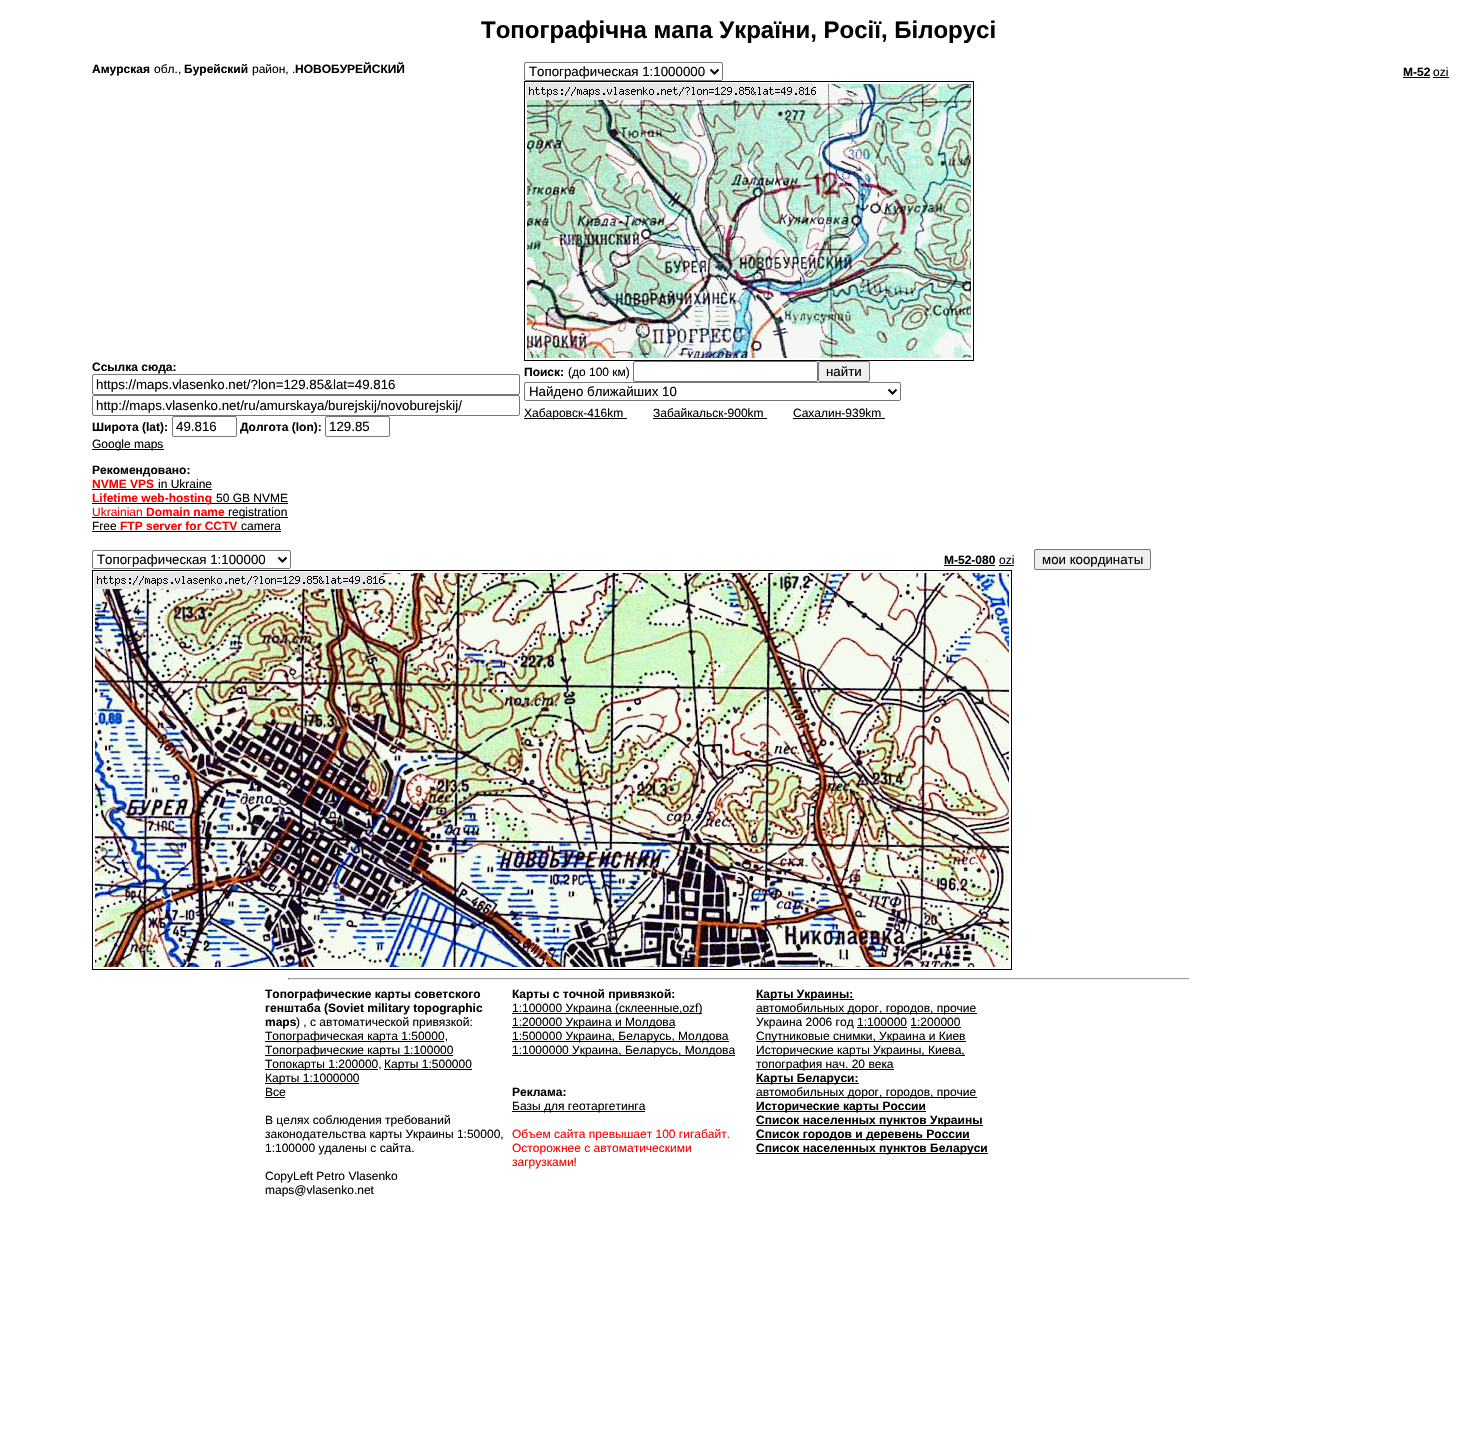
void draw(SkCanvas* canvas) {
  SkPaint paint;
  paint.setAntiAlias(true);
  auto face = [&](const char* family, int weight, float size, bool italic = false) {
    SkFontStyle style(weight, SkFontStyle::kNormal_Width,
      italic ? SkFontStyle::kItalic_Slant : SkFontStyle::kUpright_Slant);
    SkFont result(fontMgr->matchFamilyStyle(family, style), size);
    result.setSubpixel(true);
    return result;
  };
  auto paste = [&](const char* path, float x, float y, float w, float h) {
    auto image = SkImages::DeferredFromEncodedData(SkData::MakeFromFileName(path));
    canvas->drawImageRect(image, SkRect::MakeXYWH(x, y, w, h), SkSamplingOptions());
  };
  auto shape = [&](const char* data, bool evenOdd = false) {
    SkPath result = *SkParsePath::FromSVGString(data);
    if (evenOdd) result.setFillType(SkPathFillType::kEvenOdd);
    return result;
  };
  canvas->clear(0xffffffff);
  paint.setStroke(true);
  paint.setStrokeWidth(1);
  paint.setColor(0xff767676);
  canvas->drawRoundRect(SkRect::MakeXYWH(92.5f, 374.5f, 427, 20), 1.5f, 1.5f, paint);
  canvas->drawRoundRect(SkRect::MakeXYWH(92.5f, 395.5f, 427, 20), 1.5f, 1.5f, paint);
  canvas->drawRoundRect(SkRect::MakeXYWH(172.5f, 416.5f, 64, 20), 1.5f, 1.5f, paint);
  canvas->drawRoundRect(SkRect::MakeXYWH(325.5f, 416.5f, 64, 20), 1.5f, 1.5f, paint);
  paint.setStroke(false);
  {
    const struct { float x, y, w, h; SkColor color; } items[] = {
      {92, 449, 72, 1, 0xff000000},
      {92, 489, 120, 1, 0xff000000},
      {92, 503, 196, 1, 0xff000000},
      {92, 517, 196, 1, 0xff000000},
      {92, 531, 189, 1, 0xff000000},
    };
    for (auto [x, y, w, h, color] : items) {
      paint.setColor(color);
      canvas->drawRect(SkRect::MakeXYWH(x, y, w, h), paint);
    }
  }
  paint.setStroke(true);
  paint.setColor(0xff767676);
  canvas->drawRoundRect(SkRect::MakeXYWH(524.5f, 62.5f, 198, 18), 1.5f, 1.5f, paint);
  paint.setStrokeWidth(2);
  paint.setColor(0xff000000);
  canvas->drawPath(shape("M710.5 69.5L714.5 73.5L718.5 69.5"), paint);
  paint.setStroke(false);
  canvas->drawRect(SkRect::MakeXYWH(1403, 77, 27, 1), paint);
  canvas->drawRect(SkRect::MakeXYWH(1433, 77, 16, 1), paint);
  paste("img/1.png", 524, 81, 450, 280);
  paint.setStroke(true);
  paint.setStrokeWidth(1);
  paint.setColor(0xff767676);
  canvas->drawRoundRect(SkRect::MakeXYWH(633.5f, 361.5f, 184, 20), 1.5f, 1.5f, paint);
  paint.setStroke(false);
  paint.setColor(0xffefefef);
  canvas->drawRoundRect(SkRect::MakeXYWH(818.5f, 361.5f, 51, 20), 1.5f, 1.5f, paint);
  paint.setStroke(true);
  paint.setColor(0xff767676);
  canvas->drawRoundRect(SkRect::MakeXYWH(818.5f, 361.5f, 51, 20), 1.5f, 1.5f, paint);
  canvas->drawRoundRect(SkRect::MakeXYWH(524.5f, 382.5f, 376, 18), 1.5f, 1.5f, paint);
  paint.setStrokeWidth(2);
  paint.setColor(0xff000000);
  canvas->drawPath(shape("M888.5 389.5L892.5 393.5L896.5 389.5"), paint);
  paint.setStroke(false);
  {
    const struct { float x, y, w, h; SkColor color; } items[] = {
      {524, 418, 103, 1, 0xff000000},
      {653, 418, 114, 1, 0xff000000},
      {793, 418, 92, 1, 0xff000000},
    };
    for (auto [x, y, w, h, color] : items) {
      paint.setColor(color);
      canvas->drawRect(SkRect::MakeXYWH(x, y, w, h), paint);
    }
  }
  paint.setStroke(true);
  paint.setStrokeWidth(1);
  paint.setColor(0xff767676);
  canvas->drawRoundRect(SkRect::MakeXYWH(92.5f, 550.5f, 198, 18), 1.5f, 1.5f, paint);
  paint.setStrokeWidth(2);
  paint.setColor(0xff000000);
  canvas->drawPath(shape("M278.5 557.5L282.5 561.5L286.5 557.5"), paint);
  paint.setStroke(false);
  canvas->drawRect(SkRect::MakeXYWH(944, 565, 51, 1), paint);
  canvas->drawRect(SkRect::MakeXYWH(999, 565, 15, 1), paint);
  paint.setColor(0xffefefef);
  canvas->drawRoundRect(SkRect::MakeXYWH(1034.5f, 549.5f, 116, 20), 1.5f, 1.5f, paint);
  paint.setStroke(true);
  paint.setStrokeWidth(1);
  paint.setColor(0xff767676);
  canvas->drawRoundRect(SkRect::MakeXYWH(1034.5f, 549.5f, 116, 20), 1.5f, 1.5f, paint);
  paste("img/2.png", 92, 570, 920, 400);
  paint.setStroke(false);
  {
    const struct { float x, y, w, h; SkColor color; } items[] = {
      {288, 978, 902, 1, 0xff9f9f9f},
      {1189, 978, 1, 2, 0xffeeeeee},
      {288, 979, 902, 1, 0xffeeeeee},
      {288, 978, 1, 2, 0xff9f9f9f},
      {265, 1041, 179, 1, 0xff000000},
      {265, 1055, 188, 1, 0xff000000},
      {265, 1069, 113, 1, 0xff000000},
      {384, 1069, 88, 1, 0xff000000},
      {265, 1083, 94, 1, 0xff000000},
      {265, 1097, 20, 1, 0xff000000},
      {512, 1013, 190, 1, 0xff000000},
      {512, 1027, 163, 1, 0xff000000},
      {512, 1041, 217, 1, 0xff000000},
      {512, 1055, 223, 1, 0xff000000},
      {512, 1111, 133, 1, 0xff000000},
      {756, 999, 98, 1, 0xff000000},
      {756, 1013, 221, 1, 0xff000000},
      {857, 1027, 50, 1, 0xff000000},
      {911, 1027, 50, 1, 0xff000000},
      {756, 1041, 210, 1, 0xff000000},
      {756, 1055, 209, 1, 0xff000000},
      {756, 1069, 138, 1, 0xff000000},
      {756, 1083, 103, 1, 0xff000000},
      {756, 1097, 221, 1, 0xff000000},
      {756, 1111, 170, 1, 0xff000000},
      {756, 1125, 227, 1, 0xff000000},
      {756, 1139, 214, 1, 0xff000000},
      {756, 1153, 232, 1, 0xff000000},
    };
    for (auto [x, y, w, h, color] : items) {
      paint.setColor(color);
      canvas->drawRect(SkRect::MakeXYWH(x, y, w, h), paint);
    }
  }
  auto f0 = face("Liberation Sans", 700, 24);
  canvas->drawString("Топографічна мапа України, Росії, Білорусі", 481, 38, f0, paint);
  auto f1 = face("Liberation Sans", 700, 12);
  canvas->drawString("Амурская", 92, 73, f1, paint);
  auto f2 = face("Liberation Sans", 400, 12);
  canvas->drawString("обл.,", 154, 73, f2, paint);
  canvas->drawString("Бурейский", 184, 73, f1, paint);
  canvas->drawString("район, .", 252, 73, f2, paint);
  canvas->drawString("НОВОБУРЕЙСКИЙ", 295, 73, f1, paint);
  canvas->drawString("Ссылка сюда:", 92, 371, f1, paint);
  auto f3 = face("Liberation Sans", 400, 13.3f);
  canvas->drawString("https://maps.vlasenko.net/?lon=129.85&lat=49.816", 96, 389, f3, paint);
  canvas->drawString("http://maps.vlasenko.net/ru/amurskaya/burejskij/novoburejskij/", 96, 410, f3, paint);
  canvas->drawString("Широта (lat):", 92, 431, f1, paint);
  canvas->drawString("49.816", 176, 431, f3, paint);
  canvas->drawString("Долгота (lon):", 240, 431, f1, paint);
  canvas->drawString("129.85", 329, 431, f3, paint);
  canvas->drawString("Google maps", 92, 448, f2, paint);
  canvas->drawString("Рекомендовано:", 92, 474, f1, paint);
  paint.setColor(0xffff0000);
  canvas->drawString("NVME VPS", 92, 488, f1, paint);
  paint.setColor(0xff000000);
  canvas->drawString("in Ukraine", 158, 488, f2, paint);
  paint.setColor(0xffff0000);
  canvas->drawString("Lifetime web-hosting", 92, 502, f1, paint);
  paint.setColor(0xff000000);
  canvas->drawString("50 GB NVME", 216, 502, f2, paint);
  paint.setColor(0xffff0000);
  canvas->drawString("Ukrainian", 92, 516, f2, paint);
  canvas->drawString("Domain name", 146, 516, f1, paint);
  paint.setColor(0xff000000);
  canvas->drawString("registration", 228, 516, f2, paint);
  canvas->drawString("Free", 92, 530, f2, paint);
  paint.setColor(0xffff0000);
  canvas->drawString("FTP server for CCTV", 120, 530, f1, paint);
  paint.setColor(0xff000000);
  canvas->drawString("camera", 241, 530, f2, paint);
  canvas->drawString("Топографическая 1:1000000", 529, 76, f3, paint);
  canvas->drawString("M-52", 1403, 76, f1, paint);
  canvas->drawString("ozi", 1433, 76, f2, paint);
  canvas->drawString("Поиск:", 524, 376, f1, paint);
  canvas->drawString("(до 100 км)", 568, 376, f2, paint);
  canvas->drawString("найти", 826, 376, f3, paint);
  canvas->drawString("Найдено ближайших 10", 529, 396, f3, paint);
  {
    const struct { const char* s; float x, y; } items[] = {
      {"Хабаровск-416km", 524, 417},
      {"Забайкальск-900km", 653, 417},
      {"Сахалин-939km", 793, 417},
    };
    for (auto [s, x, y] : items) {
      canvas->drawString(s, x, y, f2, paint);
    }
  }
  canvas->drawString("Топографическая 1:100000", 97, 564, f3, paint);
  canvas->drawString("M-52-080", 944, 564, f1, paint);
  canvas->drawString("ozi", 999, 564, f2, paint);
  canvas->drawString("мои координаты", 1042, 564, f3, paint);
  {
    const struct { const char* s; float x, y; } items[] = {
      {"Топографические карты советского", 265, 998},
      {"генштаба (Soviet military topographic", 265, 1012},
      {"maps", 265, 1026},
    };
    for (auto [s, x, y] : items) {
      canvas->drawString(s, x, y, f1, paint);
    }
  }
  {
    const struct { const char* s; float x, y; } items[] = {
      {") , с автоматической привязкой:", 296, 1026},
      {"Топографическая карта 1:50000,", 265, 1040},
      {"Топографические карты 1:100000", 265, 1054},
      {"Топокарты 1:200000,", 265, 1068},
      {"Карты 1:500000", 384, 1068},
      {"Карты 1:1000000", 265, 1082},
      {"Все", 265, 1096},
      {"В целях соблюдения требований", 265, 1124},
      {"законодательства карты Украины 1:50000,", 265, 1138},
      {"1:100000 удалены с сайта.", 265, 1152},
      {"CopyLeft Petro Vlasenko", 265, 1180},
      {"maps@vlasenko.net", 265, 1194},
    };
    for (auto [s, x, y] : items) {
      canvas->drawString(s, x, y, f2, paint);
    }
  }
  canvas->drawString("Карты с точной привязкой:", 512, 998, f1, paint);
  {
    const struct { const char* s; float x, y; } items[] = {
      {"1:100000 Украина (cклеенные,ozf)", 512, 1012},
      {"1:200000 Украина и Молдова", 512, 1026},
      {"1:500000 Украина, Беларусь, Молдова", 512, 1040},
      {"1:1000000 Украина, Беларусь, Молдова", 512, 1054},
    };
    for (auto [s, x, y] : items) {
      canvas->drawString(s, x, y, f2, paint);
    }
  }
  canvas->drawString("Реклама:", 512, 1096, f1, paint);
  canvas->drawString("Базы для геотаргетинга", 512, 1110, f2, paint);
  paint.setColor(0xffff0000);
  {
    const struct { const char* s; float x, y; } items[] = {
      {"Объем сайта превышает 100 гигабайт.", 512, 1138},
      {"Осторожнее с автоматическими", 512, 1152},
      {"загрузками!", 512, 1166},
    };
    for (auto [s, x, y] : items) {
      canvas->drawString(s, x, y, f2, paint);
    }
  }
  paint.setColor(0xff000000);
  canvas->drawString("Карты Украины:", 756, 998, f1, paint);
  {
    const struct { const char* s; float x, y; } items[] = {
      {"автомобильных дорог, городов, прочие", 756, 1012},
      {"Украина 2006 год 1:100000 1:200000", 756, 1026},
      {"Спутниковые снимки, Украина и Киев", 756, 1040},
      {"Исторические карты Украины, Киева,", 756, 1054},
      {"топография нач. 20 века", 756, 1068},
    };
    for (auto [s, x, y] : items) {
      canvas->drawString(s, x, y, f2, paint);
    }
  }
  canvas->drawString("Карты Беларуси:", 756, 1082, f1, paint);
  canvas->drawString("автомобильных дорог, городов, прочие", 756, 1096, f2, paint);
  {
    const struct { const char* s; float x, y; } items[] = {
      {"Исторические карты России", 756, 1110},
      {"Список населенных пунктов Украины", 756, 1124},
      {"Список городов и деревень России", 756, 1138},
      {"Список населенных пунктов Беларуси", 756, 1152},
    };
    for (auto [s, x, y] : items) {
      canvas->drawString(s, x, y, f1, paint);
    }
  }
}
